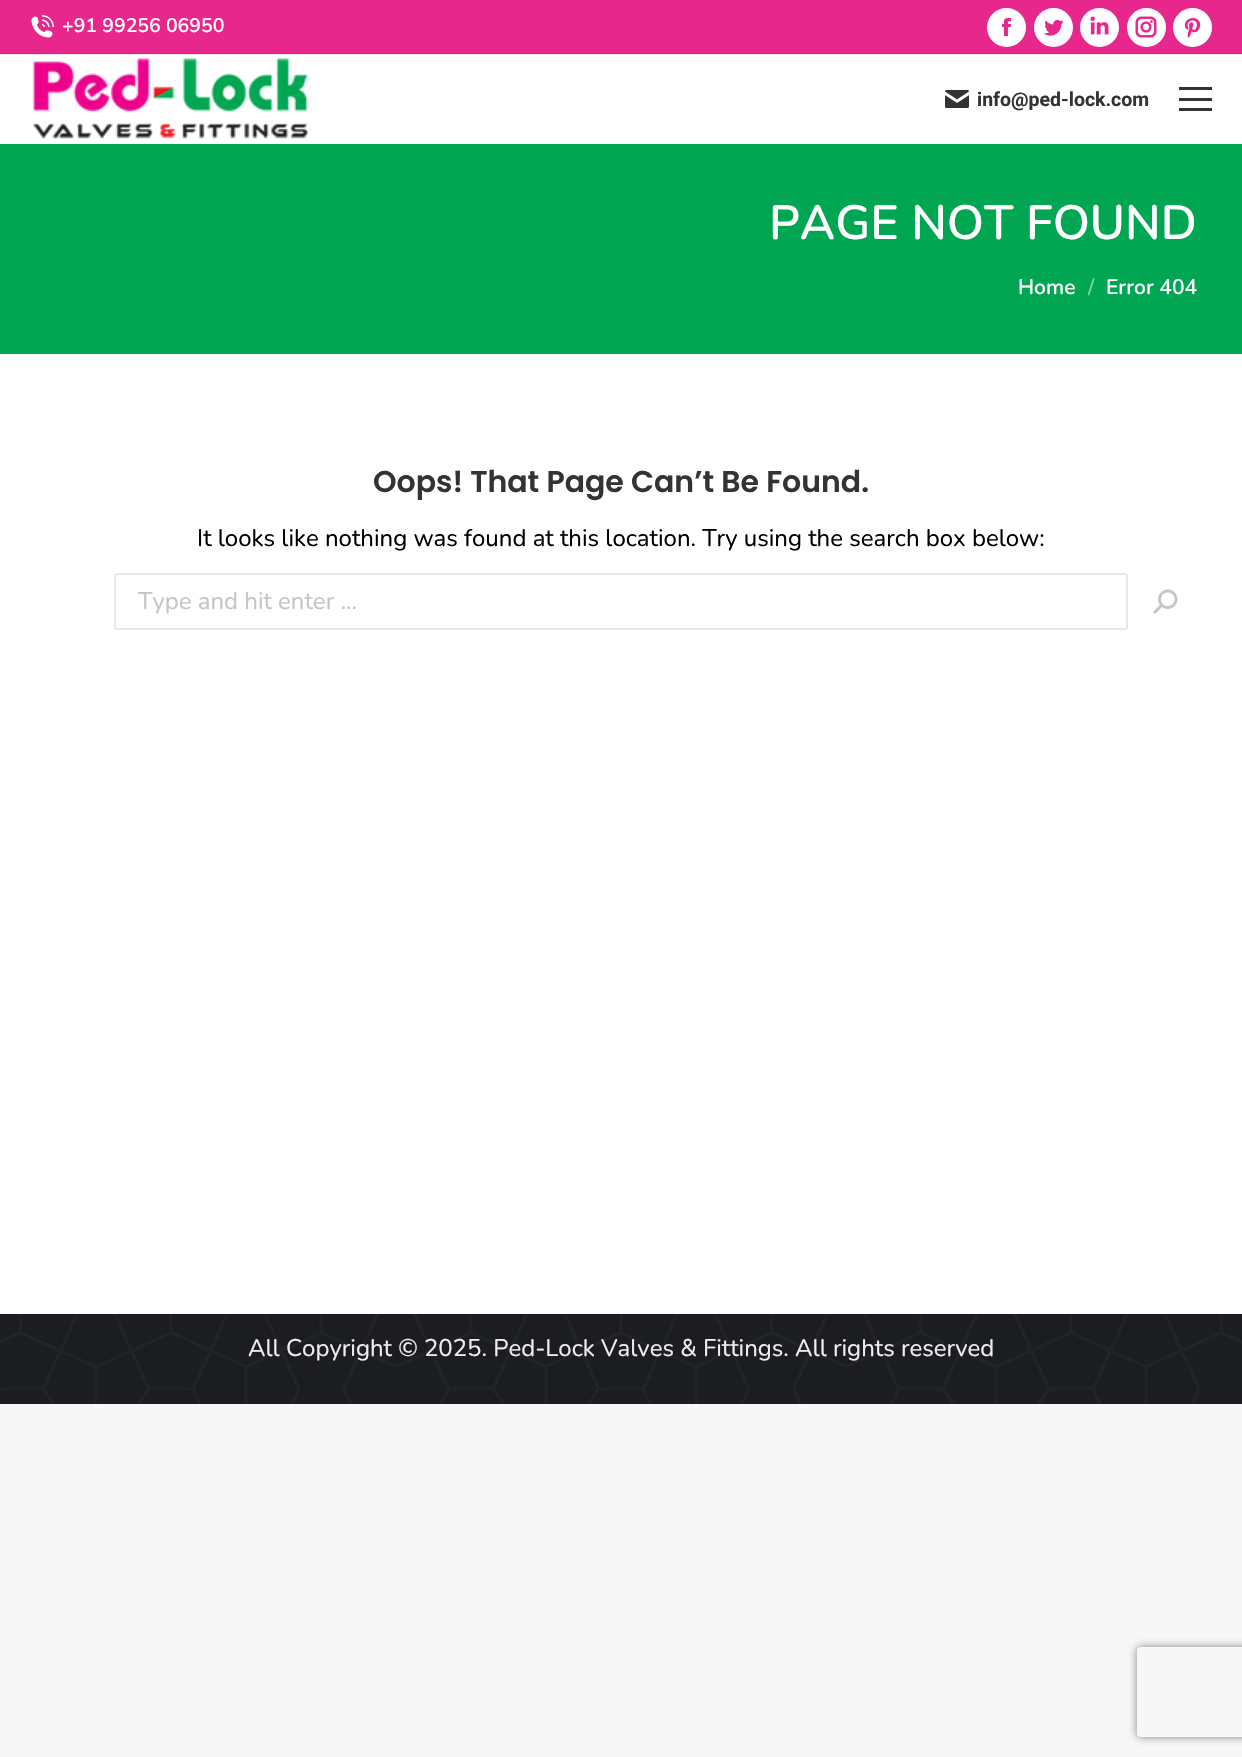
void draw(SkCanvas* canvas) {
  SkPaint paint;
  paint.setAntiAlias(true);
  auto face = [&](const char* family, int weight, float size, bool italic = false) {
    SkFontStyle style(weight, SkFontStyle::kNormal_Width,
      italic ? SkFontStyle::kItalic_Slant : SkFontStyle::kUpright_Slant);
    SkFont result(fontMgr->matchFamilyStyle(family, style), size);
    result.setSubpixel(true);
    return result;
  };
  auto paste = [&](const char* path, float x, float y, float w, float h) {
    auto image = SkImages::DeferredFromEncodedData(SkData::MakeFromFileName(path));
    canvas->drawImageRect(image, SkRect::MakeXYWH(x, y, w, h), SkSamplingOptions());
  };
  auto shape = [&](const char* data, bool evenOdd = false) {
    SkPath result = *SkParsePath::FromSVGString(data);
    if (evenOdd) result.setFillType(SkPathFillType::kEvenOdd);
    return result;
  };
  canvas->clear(0xfff7f7f7);
  {
    const struct { float x, y, w, h; SkColor color; } items[] = {
      {0, 55, 1242, 1259, 0xffffffff},
      {0, 54, 1242, 1, 0xffe9e9e9},
      {0, 0, 1242, 53, 0xffe7278c},
      {0, 53, 1242, 1, 0xffd32882},
    };
    for (auto [x, y, w, h, color] : items) {
      paint.setColor(color);
      canvas->drawRect(SkRect::MakeXYWH(x, y, w, h), paint);
    }
  }
  paste("img/1.png", 31, 15, 23, 23);
  paint.setColor(0xffffffff);
  canvas->drawCircle(1006.5f, 27.5f, 19.5f, paint);
  paste("img/2.png", 1001, 18, 11, 18);
  canvas->drawCircle(1053.5f, 27.5f, 19.5f, paint);
  paste("img/3.png", 1044, 19, 20, 17);
  canvas->drawCircle(1099.5f, 27.5f, 19.5f, paint);
  paste("img/4.png", 1090, 16, 19, 19);
  canvas->drawCircle(1146.5f, 27.5f, 19.5f, paint);
  paste("img/5.png", 1135, 16, 22, 22);
  canvas->drawCircle(1192.5f, 27.5f, 19.5f, paint);
  paste("img/6.png", 1184, 18, 17, 20);
  paste("img/7.png", 32, 58, 276, 81);
  paste("img/8.png", 945, 90, 24, 18);
  {
    const struct { float x, y, w, h; SkColor color; } items[] = {
      {1179, 98, 33, 3, 0xff333333},
      {1179, 87, 33, 3, 0xff333333},
      {1179, 108, 33, 3, 0xff333333},
      {0, 144, 1242, 210, 0xff00a651},
    };
    for (auto [x, y, w, h, color] : items) {
      paint.setColor(color);
      canvas->drawRect(SkRect::MakeXYWH(x, y, w, h), paint);
    }
  }
  paint.setStroke(true);
  paint.setStrokeWidth(2);
  paint.setColor(0xffe7e7e7);
  canvas->drawRoundRect(SkRect::MakeXYWH(115, 574, 1012, 55), 2, 2, paint);
  paste("img/9.png", 1153, 589, 25, 25);
  paint.setStroke(false);
  paint.setColor(0xff1a1c20);
  canvas->drawRect(SkRect::MakeXYWH(0, 1314, 1242, 90), paint);
  paste("img/10.png", 0, 1314, 1242, 90);
  canvas->save();
  canvas->clipPath(shape("M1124 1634H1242V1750H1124ZM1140 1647H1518C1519.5 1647 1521 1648.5 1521 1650V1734C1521 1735.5 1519.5 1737 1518 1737H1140C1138.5 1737 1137 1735.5 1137 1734V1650C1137 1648.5 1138.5 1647 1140 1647Z", true), true);
  paint.setColor(0xff808080);
  paint.setMaskFilter(SkMaskFilter::MakeBlur(kNormal_SkBlurStyle, 4));
  canvas->drawRoundRect(SkRect::MakeXYWH(1137, 1647, 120, 90), 3, 3, paint);
  paint.setMaskFilter(nullptr);
  canvas->restore();
  auto f0 = face("Nunito", 600, 19.5f);
  paint.setColor(0xffffffff);
  canvas->drawString("+91 99256 06950", 62, 32, f0, paint);
  auto f1 = face("Roboto", 700, 19.5f);
  paint.setColor(0xff333333);
  canvas->drawString("info@ped-lock.com", 977, 106, f1, paint);
  auto f2 = face("Nunito", 600, 48);
  paint.setColor(0xffffffff);
  canvas->drawString("PAGE NOT FOUND", 769, 239, f2, paint);
  auto f3 = face("Nunito", 600, 21);
  canvas->drawString("Home", 1018, 294, f3, paint);
  paint.setColor(0xff80d3a8);
  canvas->drawString("/", 1088, 294, f3, paint);
  paint.setColor(0xffffffff);
  canvas->drawString("Error 404", 1106, 294, f3, paint);
  auto f4 = face("Poppins", 600, 30);
  paint.setColor(0xff333333);
  canvas->drawString("Oops! That Page Can’t Be Found.", 373, 492, f4, paint);
  auto f5 = face("Nunito", 400, 24);
  paint.setColor(0xff000000);
  canvas->drawString("It looks like nothing was found at this location. Try using the search box below:", 197, 546, f5, paint);
  paint.setColor(0xffc4c5c9);
  canvas->drawString("Type and hit enter …", 138, 609, f5, paint);
  paint.setColor(0xffeeeeee);
  canvas->drawString("All Copyright © 2025. Ped-Lock Valves & Fittings. All rights reserved", 248, 1356, f5, paint);
}
